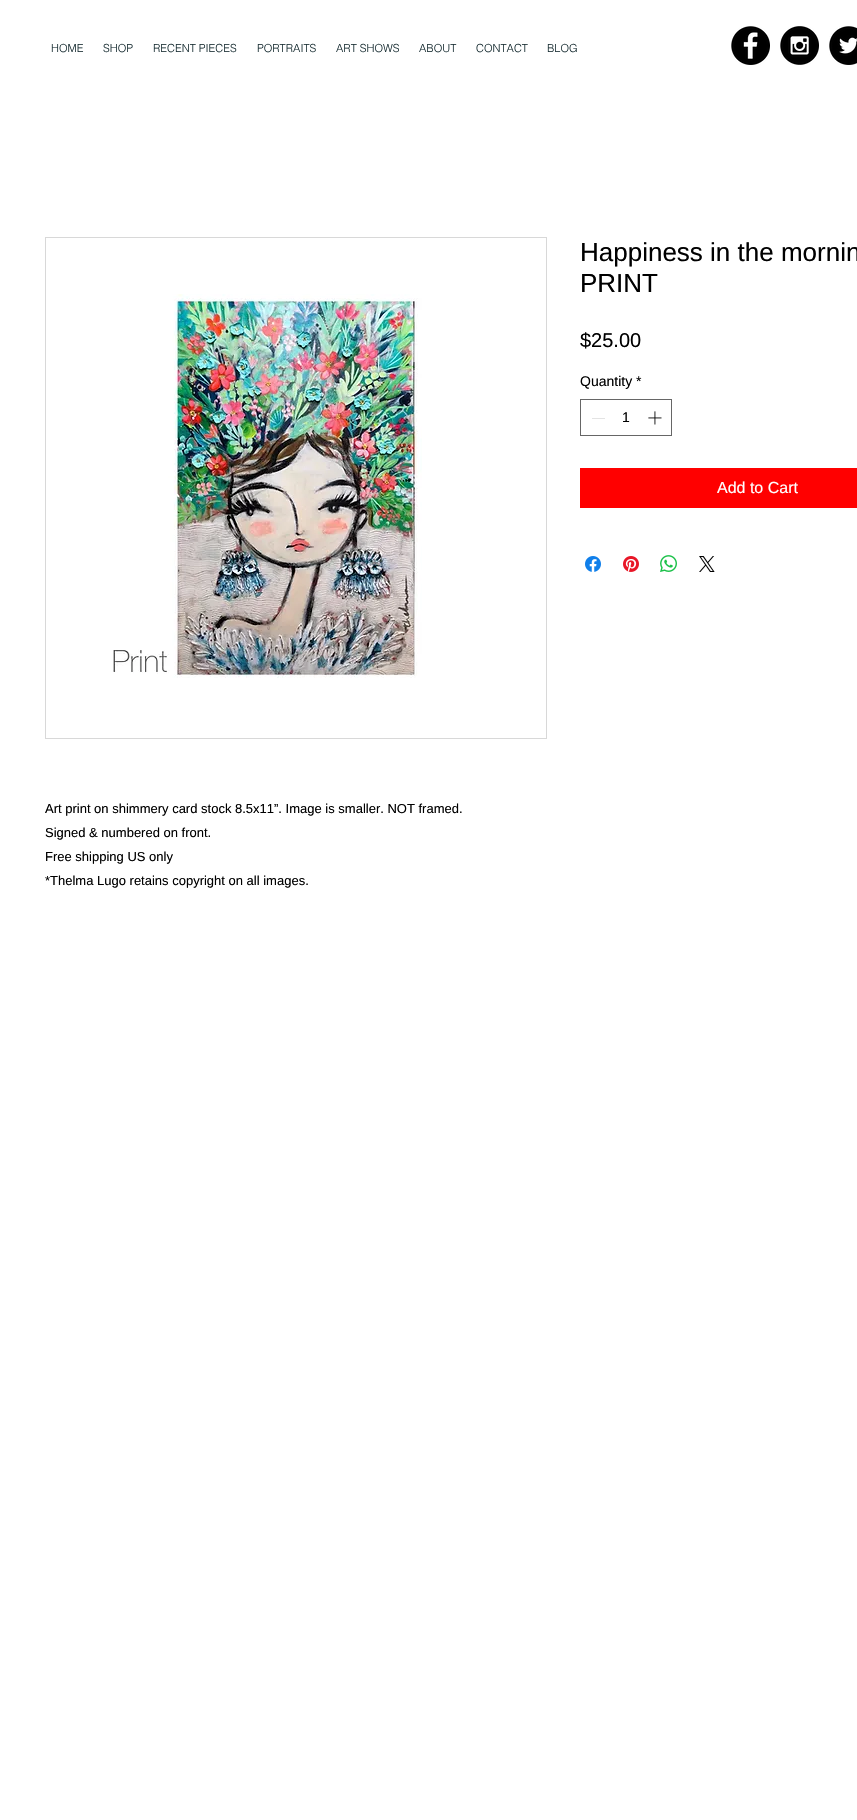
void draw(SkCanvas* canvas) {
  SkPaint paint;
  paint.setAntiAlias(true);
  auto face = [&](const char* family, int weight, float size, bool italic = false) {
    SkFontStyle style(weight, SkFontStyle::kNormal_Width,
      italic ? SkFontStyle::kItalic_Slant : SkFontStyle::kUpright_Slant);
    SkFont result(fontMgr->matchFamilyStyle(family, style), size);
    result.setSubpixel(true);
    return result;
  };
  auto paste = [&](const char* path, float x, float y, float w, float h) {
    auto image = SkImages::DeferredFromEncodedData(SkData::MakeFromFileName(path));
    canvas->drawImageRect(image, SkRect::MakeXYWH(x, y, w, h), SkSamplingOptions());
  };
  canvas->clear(0xffffffff);
  paste("img/1.png", 731, 26, 39, 39);
  paste("img/2.png", 780, 26, 39, 39);
  paste("img/3.png", 829, 26, 28, 39);
  paint.setStroke(true);
  paint.setStrokeWidth(1);
  paint.setColor(0xff666666);
  canvas->drawRect(SkRect::MakeXYWH(580.5f, 399.5f, 91, 36), paint);
  paint.setStroke(false);
  paint.setColor(0xffe3e3e3);
  canvas->drawRect(SkRect::MakeXYWH(592, 418, 13, 1), paint);
  paste("img/4.png", 648, 411, 14, 14);
  paint.setColor(0xffff0000);
  canvas->drawRect(SkRect::MakeXYWH(580, 468, 277, 40), paint);
  paste("img/5.png", 585, 556, 16, 16);
  paste("img/6.png", 623, 556, 16, 16);
  paste("img/7.png", 660, 555, 17, 17);
  paste("img/8.png", 699, 556, 16, 16);
  paint.setStroke(true);
  paint.setColor(0xffd8d8d8);
  canvas->drawRect(SkRect::MakeXYWH(45.5f, 237.5f, 501, 501), paint);
  paste("img/9.png", 113, 294, 309, 384);
  auto f0 = face("helvetica", 300, 11);
  paint.setStroke(false);
  paint.setColor(0xff192e33);
  {
    const struct { const char* s; float x, y; } items[] = {
      {"HOME", 51, 52},
      {"SHOP", 103, 52},
      {"RECENT PIECES", 153, 52},
      {"PORTRAITS", 257, 52},
      {"ART SHOWS", 336, 52},
      {"ABOUT", 419, 52},
      {"CONTACT", 476, 52},
      {"BLOG", 547, 52},
    };
    for (auto [s, x, y] : items) {
      canvas->drawString(s, x, y, f0, paint);
    }
  }
  auto f1 = face("Liberation Sans", 400, 26);
  paint.setColor(0xff000000);
  canvas->drawString("Happiness in the mornin", 580, 261, f1, paint);
  canvas->drawString("PRINT", 580, 292, f1, paint);
  auto f2 = face("Liberation Sans", 400, 20);
  canvas->drawString("$25.00", 580, 347, f2, paint);
  auto f3 = face("Liberation Sans", 400, 14);
  canvas->drawString("Quantity *", 580, 386, f3, paint);
  canvas->drawString("1", 622, 422, f3, paint);
  auto f4 = face("Liberation Sans", 400, 16);
  paint.setColor(0xffffffff);
  canvas->drawString("Add to Cart", 717, 493, f4, paint);
  auto f5 = face("Liberation Sans", 400, 13);
  paint.setColor(0xff000000);
  {
    const struct { const char* s; float x, y; } items[] = {
      {"Art print on shimmery card stock 8.5x11”. Image is smaller. NOT framed.", 45, 813},
      {"Signed & numbered on front.", 45, 837},
      {"Free shipping US only", 45, 861},
      {"*Thelma Lugo retains copyright on all images.", 45, 885},
    };
    for (auto [s, x, y] : items) {
      canvas->drawString(s, x, y, f5, paint);
    }
  }
}
